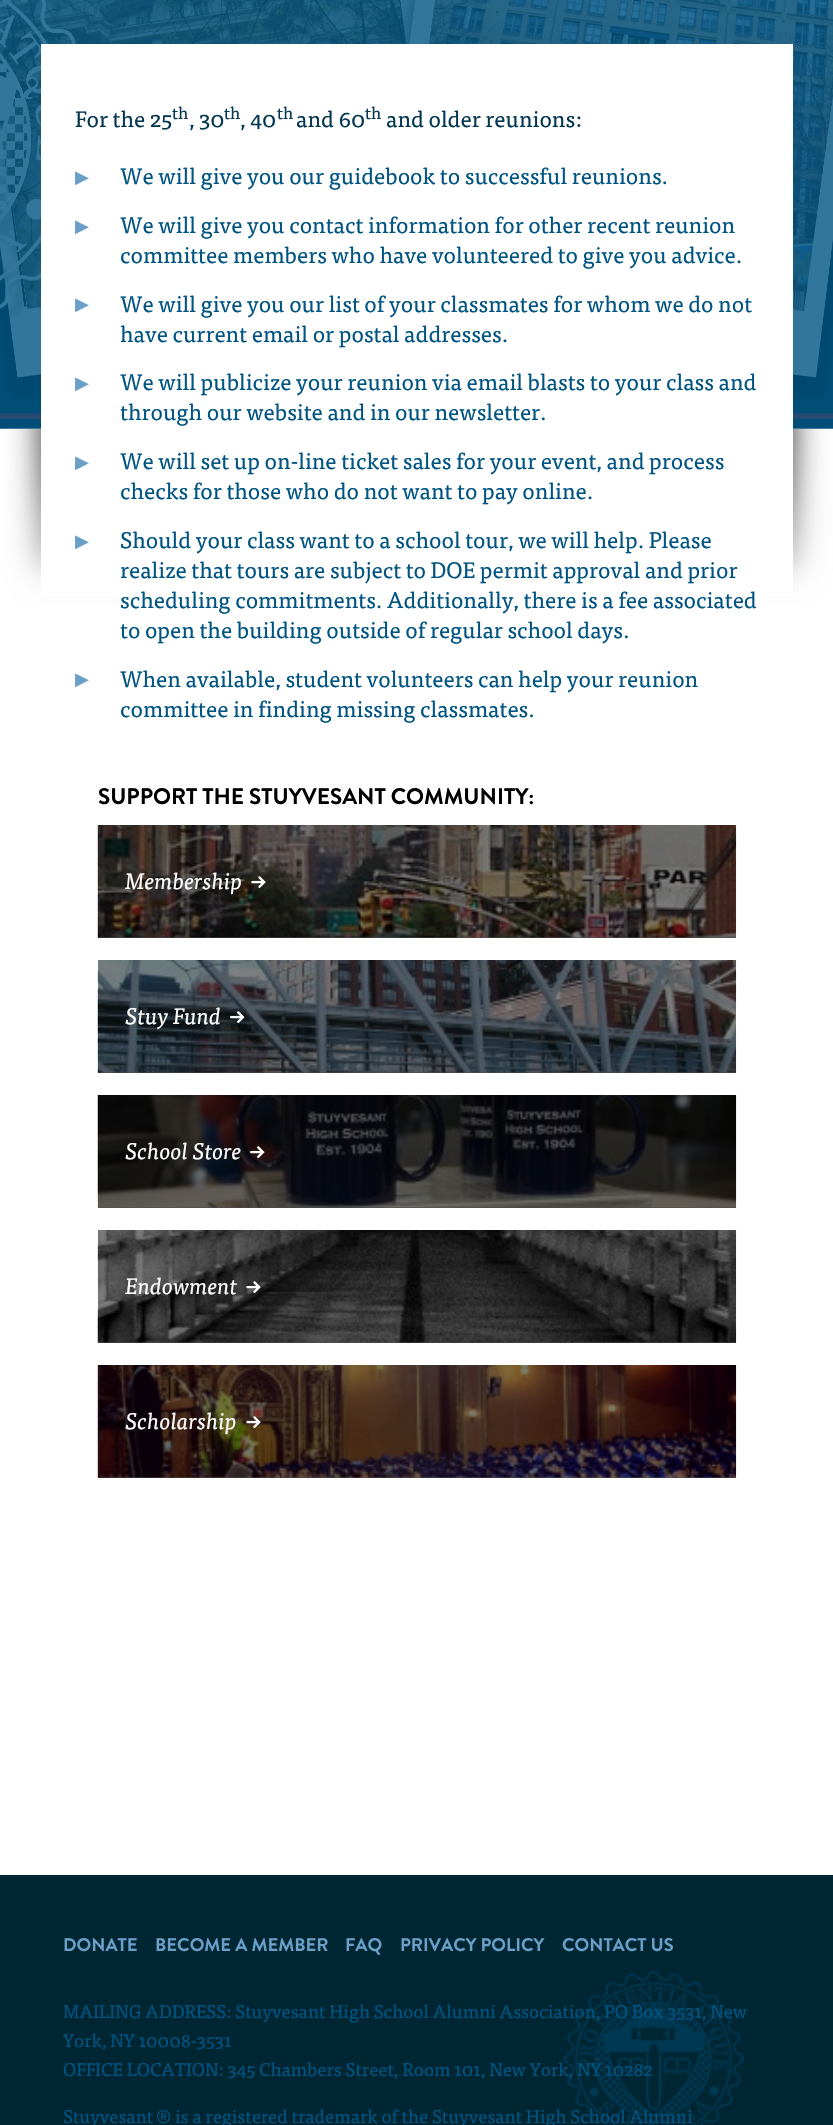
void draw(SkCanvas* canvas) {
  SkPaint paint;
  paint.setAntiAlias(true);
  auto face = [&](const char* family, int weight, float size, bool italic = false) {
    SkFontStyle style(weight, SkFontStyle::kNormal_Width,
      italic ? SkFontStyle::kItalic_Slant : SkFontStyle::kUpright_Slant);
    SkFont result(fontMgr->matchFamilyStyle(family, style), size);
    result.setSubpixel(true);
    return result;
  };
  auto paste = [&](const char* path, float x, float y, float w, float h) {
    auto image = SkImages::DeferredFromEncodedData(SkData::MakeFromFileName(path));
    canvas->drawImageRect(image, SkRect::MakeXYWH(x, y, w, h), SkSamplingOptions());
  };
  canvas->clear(0xffffffff);
  paste("img/1.png", 0, 0, 833, 429);
  canvas->save();
  canvas->clipRect(SkRect::MakeXYWH(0, 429, 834, 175));
  paint.setColor(0xff2b2828);
  paint.setMaskFilter(SkMaskFilter::MakeBlur(kNormal_SkBlurStyle, 15.5f));
  canvas->drawRect(SkRect::MakeXYWH(41, 398, 752, 175), paint);
  paint.setMaskFilter(nullptr);
  paint.setColor(0xffffffff);
  paint.setMaskFilter(SkMaskFilter::MakeBlur(kNormal_SkBlurStyle, 62.5f));
  canvas->drawRect(SkRect::MakeXYWH(-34, 529, 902, 325), paint);
  paint.setMaskFilter(nullptr);
  canvas->restore();
  canvas->drawRect(SkRect::MakeXYWH(41, 44, 752, 552), paint);
  paint.setColor(0xff4a4b4c);
  canvas->drawRect(SkRect::MakeXYWH(98, 937, 638, 1), paint);
  paste("img/2.png", 97, 825, 640, 113);
  paste("img/3.png", 251, 876, 15, 12);
  canvas->drawRect(SkRect::MakeXYWH(98, 1072, 638, 1), paint);
  paste("img/4.png", 97, 960, 640, 113);
  paste("img/5.png", 230, 1011, 15, 12);
  canvas->drawRect(SkRect::MakeXYWH(98, 1207, 638, 1), paint);
  paste("img/6.png", 97, 1095, 640, 113);
  paste("img/7.png", 250, 1146, 15, 12);
  canvas->drawRect(SkRect::MakeXYWH(98, 1342, 638, 1), paint);
  paste("img/8.png", 97, 1230, 640, 113);
  paste("img/9.png", 246, 1281, 15, 12);
  canvas->drawRect(SkRect::MakeXYWH(98, 1477, 638, 1), paint);
  paste("img/10.png", 97, 1365, 640, 113);
  paste("img/11.png", 246, 1416, 15, 12);
  paint.setColor(0xff002634);
  canvas->drawRect(SkRect::MakeXYWH(0, 1875, 833, 250), paint);
  paste("img/12.png", 563, 1971, 181, 154);
  auto f0 = face("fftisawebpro", 400, 22.5f);
  paint.setColor(0xff043751);
  canvas->drawString("For the 25", 75, 127, f0, paint);
  auto f1 = face("fftisawebpro", 400, 17);
  canvas->drawString("th", 172, 119, f1, paint);
  canvas->drawString(", 30", 189, 127, f0, paint);
  canvas->drawString("th", 224, 119, f1, paint);
  canvas->drawString(", 40", 240, 127, f0, paint);
  canvas->drawString("th", 277, 119, f1, paint);
  canvas->drawString("and 60", 296, 127, f0, paint);
  canvas->drawString("th", 365, 119, f1, paint);
  canvas->drawString("and older reunions:", 386, 127, f0, paint);
  auto f2 = face("DejaVu Sans", 400, 18);
  paint.setColor(0xff6aa0c8);
  canvas->drawString("▶", 75, 183, f2, paint);
  paint.setColor(0xff005482);
  canvas->drawString("We will give you our guidebook to successful reunions.", 120, 184, f0, paint);
  paint.setColor(0xff6aa0c8);
  canvas->drawString("▶", 75, 232, f2, paint);
  paint.setColor(0xff005482);
  canvas->drawString("We will give you contact information for other recent reunion", 120, 233, f0, paint);
  canvas->drawString("committee members who have volunteered to give you advice.", 120, 263, f0, paint);
  paint.setColor(0xff6aa0c8);
  canvas->drawString("▶", 75, 310, f2, paint);
  paint.setColor(0xff005482);
  canvas->drawString("We will give you our list of your classmates for whom we do not", 120, 312, f0, paint);
  canvas->drawString("have current email or postal addresses.", 120, 342, f0, paint);
  paint.setColor(0xff6aa0c8);
  canvas->drawString("▶", 75, 389, f2, paint);
  paint.setColor(0xff005482);
  canvas->drawString("We will publicize your reunion via email blasts to your class and", 120, 390, f0, paint);
  canvas->drawString("through our website and in our newsletter.", 120, 420, f0, paint);
  paint.setColor(0xff6aa0c8);
  canvas->drawString("▶", 75, 468, f2, paint);
  paint.setColor(0xff005482);
  canvas->drawString("We will set up on-line ticket sales for your event, and process", 120, 469, f0, paint);
  canvas->drawString("checks for those who do not want to pay online.", 120, 499, f0, paint);
  paint.setColor(0xff6aa0c8);
  canvas->drawString("▶", 75, 547, f2, paint);
  paint.setColor(0xff005482);
  {
    const struct { const char* s; float x, y; } items[] = {
      {"Should your class want to a school tour, we will help. Please", 120, 548},
      {"realize that tours are subject to DOE permit approval and prior", 120, 578},
      {"scheduling commitments. Additionally, there is a fee associated", 120, 608},
      {"to open the building outside of regular school days.", 120, 638},
    };
    for (auto [s, x, y] : items) {
      canvas->drawString(s, x, y, f0, paint);
    }
  }
  paint.setColor(0xff6aa0c8);
  canvas->drawString("▶", 75, 685, f2, paint);
  paint.setColor(0xff005482);
  canvas->drawString("When available, student volunteers can help your reunion", 120, 687, f0, paint);
  canvas->drawString("committee in finding missing classmates.", 120, 717, f0, paint);
  auto f3 = face("Brandon Grotesque", 700, 22.5f);
  paint.setColor(0xff000000);
  canvas->drawString("SUPPORT THE STUYVESANT COMMUNITY:", 98, 804, f3, paint);
  auto f4 = face("fftisawebpro", 400, 22.5f, true);
  paint.setColor(0xffffffff);
  {
    const struct { const char* s; float x, y; } items[] = {
      {"Membership", 125, 889},
      {"Stuy Fund", 125, 1024},
      {"School Store", 125, 1159},
      {"Endowment", 125, 1294},
      {"Scholarship", 125, 1429},
    };
    for (auto [s, x, y] : items) {
      canvas->drawString(s, x, y, f4, paint);
    }
  }
  auto f5 = face("Brandon Grotesque", 700, 18.35f);
  paint.setColor(0xff6aa0c8);
  {
    const struct { const char* s; float x, y; } items[] = {
      {"DONATE", 63, 1951},
      {"BECOME A MEMBER", 155, 1951},
      {"FAQ", 345, 1951},
      {"PRIVACY POLICY", 400, 1951},
      {"CONTACT US", 562, 1951},
    };
    for (auto [s, x, y] : items) {
      canvas->drawString(s, x, y, f5, paint);
    }
  }
  auto f6 = face("fftisawebpro", 400, 18.35f);
  paint.setColor(0xff005482);
  {
    const struct { const char* s; float x, y; } items[] = {
      {"MAILING ADDRESS: Stuyvesant High School Alumni Association, PO Box 3531, New", 63, 2018},
      {"York, NY 10008-3531", 63, 2047},
      {"OFFICE LOCATION: 345 Chambers Street, Room 101, New York, NY 10282", 63, 2076},
      {"Stuyvesant", 63, 2123},
    };
    for (auto [s, x, y] : items) {
      canvas->drawString(s, x, y, f6, paint);
    }
  }
  auto f7 = face("Brandon Grotesque", 400, 18.35f);
  canvas->drawString("®", 156, 2123, f7, paint);
  canvas->drawString("is a registered trademark of the Stuyvesant High School Alumni", 175, 2123, f6, paint);
}
